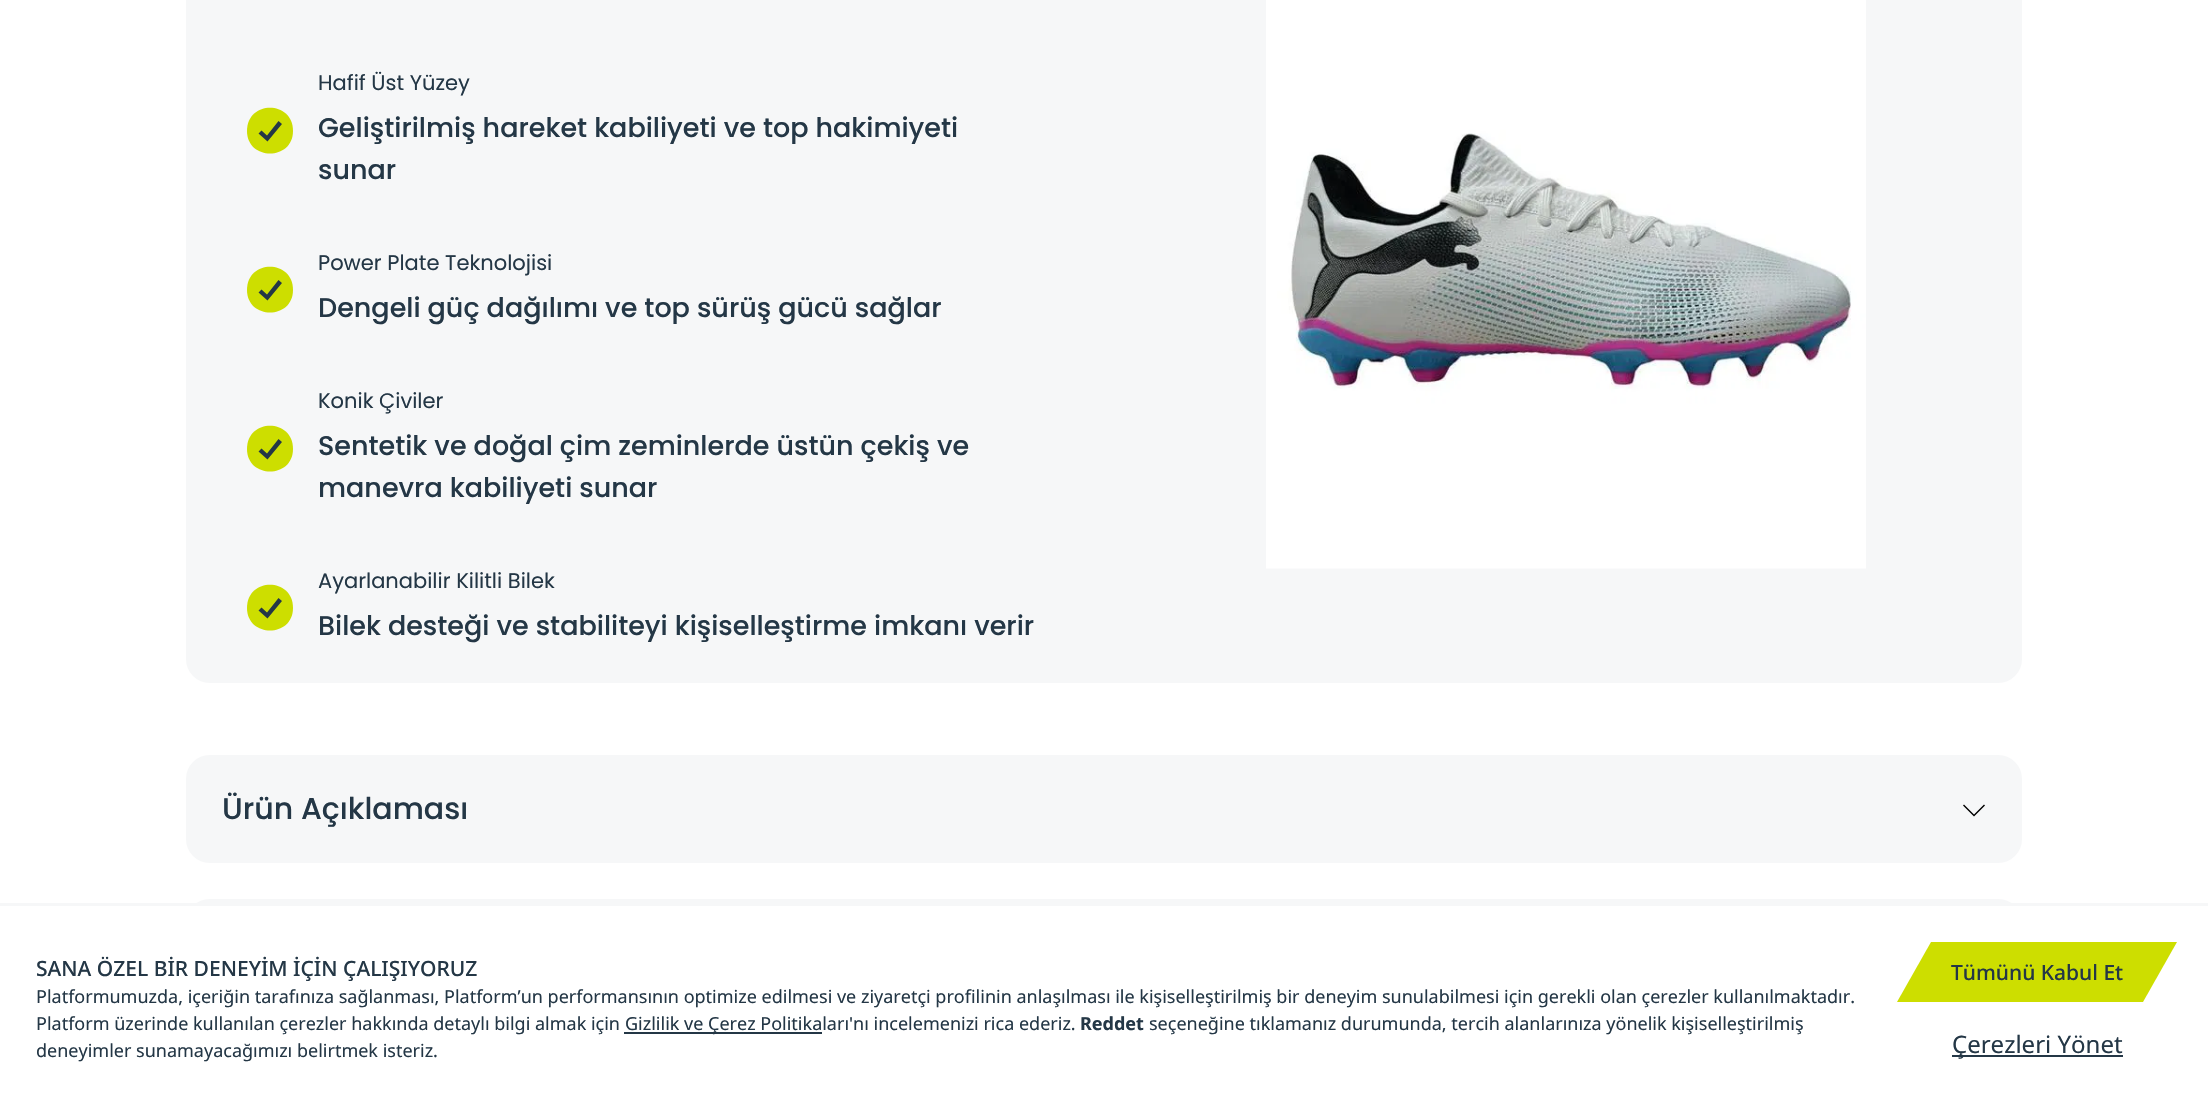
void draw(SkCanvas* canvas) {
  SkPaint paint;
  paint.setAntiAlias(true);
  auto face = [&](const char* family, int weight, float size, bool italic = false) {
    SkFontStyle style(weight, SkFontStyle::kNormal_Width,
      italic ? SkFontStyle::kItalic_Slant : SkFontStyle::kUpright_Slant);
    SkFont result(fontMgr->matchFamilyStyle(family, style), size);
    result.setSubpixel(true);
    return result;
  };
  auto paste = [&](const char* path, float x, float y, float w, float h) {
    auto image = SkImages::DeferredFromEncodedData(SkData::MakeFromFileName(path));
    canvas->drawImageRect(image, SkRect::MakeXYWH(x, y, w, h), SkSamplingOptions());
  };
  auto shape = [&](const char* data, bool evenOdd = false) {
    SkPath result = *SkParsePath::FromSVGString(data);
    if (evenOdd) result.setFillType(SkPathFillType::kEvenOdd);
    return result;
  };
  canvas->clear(0xffffffff);
  paint.setColor(0xfff6f7f8);
  canvas->drawRoundRect(SkRect::MakeXYWH(186, -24, 1836, 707), 24, 24, paint);
  paint.setColor(0xffcdde00);
  canvas->drawPath(shape("M247 131C247 161 293 161 293 131C293 100 247 100 247 131Z"), paint);
  paint.setColor(0xff243746);
  canvas->drawPath(shape("M282 124L267.5 141.5L258.5 133.5L261.5 130.5L267 135.5L278.5 121Z", true), paint);
  paint.setColor(0xffcdde00);
  canvas->drawPath(shape("M247 290C247 320 293 320 293 290C293 259 247 259 247 290Z"), paint);
  paint.setColor(0xff243746);
  canvas->drawPath(shape("M282 283L267.5 300.5L258.5 292.5L261.5 289.5L267 294.5L278.5 280Z", true), paint);
  paint.setColor(0xffcdde00);
  canvas->drawPath(shape("M247 449C247 479 293 479 293 449C293 418 247 418 247 449Z"), paint);
  paint.setColor(0xff243746);
  canvas->drawPath(shape("M282 442L267.5 459.5L258.5 451.5L261.5 448.5L267 453.5L278.5 439Z", true), paint);
  paint.setColor(0xffcdde00);
  canvas->drawPath(shape("M247 608C247 638 293 638 293 608C293 577 247 577 247 608Z"), paint);
  paint.setColor(0xff243746);
  canvas->drawPath(shape("M282 601L267.5 618.5L258.5 610.5L261.5 607.5L267 612.5L278.5 598Z", true), paint);
  paste("img/1.png", 1266, 0, 600, 569);
  paint.setColor(0xfff6f7f8);
  canvas->drawRoundRect(SkRect::MakeXYWH(186, 755, 1836, 108), 24, 24, paint);
  paint.setColor(0xff000000);
  canvas->drawPath(shape("M1963 805.5L1964 804.5L1974 814.5L1984 804.5L1985 805.5L1974 816.5Z"), paint);
  paint.setColor(0xfff6f7f8);
  canvas->drawRoundRect(SkRect::MakeXYWH(186, 899, 1836, 108), 24, 24, paint);
  {
    const struct { float x, y, w, h; SkColor color; } items[] = {
      {186, 906, 1836, 101, 0xffffffff},
      {0, 903, 2208, 3, 0xfff6f7f8},
      {624, 1032, 198, 2, 0xff243746},
    };
    for (auto [x, y, w, h, color] : items) {
      paint.setColor(color);
      canvas->drawRect(SkRect::MakeXYWH(x, y, w, h), paint);
    }
  }
  paint.setColor(0xffcdde00);
  canvas->drawPath(shape("M1931 942H2177L2143 1002H1897Z"), paint);
  paint.setColor(0xff243746);
  canvas->drawRect(SkRect::MakeXYWH(1952, 1055, 171, 2), paint);
  auto f0 = face("Poppins", 400, 21);
  canvas->drawString("Hafif Üst Yüzey", 318, 90, f0, paint);
  auto f1 = face("Poppins", 500, 27);
  canvas->drawString("Geliştirilmiş hareket kabiliyeti ve top hakimiyeti", 318, 137, f1, paint);
  canvas->drawString("sunar", 318, 179, f1, paint);
  canvas->drawString("Power Plate Teknolojisi", 318, 270, f0, paint);
  canvas->drawString("Dengeli güç dağılımı ve top sürüş gücü sağlar", 318, 317, f1, paint);
  canvas->drawString("Konik Çiviler", 318, 408, f0, paint);
  canvas->drawString("Sentetik ve doğal çim zeminlerde üstün çekiş ve", 318, 455, f1, paint);
  canvas->drawString("manevra kabiliyeti sunar", 318, 497, f1, paint);
  canvas->drawString("Ayarlanabilir Kilitli Bilek", 318, 588, f0, paint);
  canvas->drawString("Bilek desteği ve stabiliteyi kişiselleştirme imkanı verir", 318, 635, f1, paint);
  auto f2 = face("Poppins", 500, 30);
  canvas->drawString("Ürün Açıklaması", 222, 819, f2, paint);
  auto f3 = face("Noto Sans", 500, 21);
  canvas->drawString("SANA ÖZEL BİR DENEYİM İÇİN ÇALIŞIYORUZ", 36, 976, f3, paint);
  auto f4 = face("Noto Sans", 400, 18);
  {
    const struct { const char* s; float x, y; } items[] = {
      {"Platformumuzda, içeriğin tarafınıza sağlanması, Platform’un performansının optimize edilmesi ve ziyaretçi profilinin anlaşılması ile kişiselleştirilmiş bir deneyim sunulabilmesi için gerekli olan çerezler kullanılmaktadır.", 36, 1003},
      {"Platform üzerinde kullanılan çerezler hakkında detaylı bilgi almak için", 36, 1030},
      {"Gizlilik ve Çerez Politikaları'nı incelemenizi rica ederiz.", 625, 1030},
    };
    for (auto [s, x, y] : items) {
      canvas->drawString(s, x, y, f4, paint);
    }
  }
  auto f5 = face("Noto Sans", 700, 18);
  canvas->drawString("Reddet", 1080, 1030, f5, paint);
  canvas->drawString("seçeneğine tıklamanız durumunda, tercih alanlarınıza yönelik kişiselleştirilmiş", 1149, 1030, f4, paint);
  canvas->drawString("deneyimler sunamayacağımızı belirtmek isteriz.", 36, 1057, f4, paint);
  canvas->drawString("Tümünü Kabul Et", 1951, 980, f3, paint);
  auto f6 = face("Noto Sans", 400, 24);
  canvas->drawString("Çerezleri Yönet", 1952, 1053, f6, paint);
}
